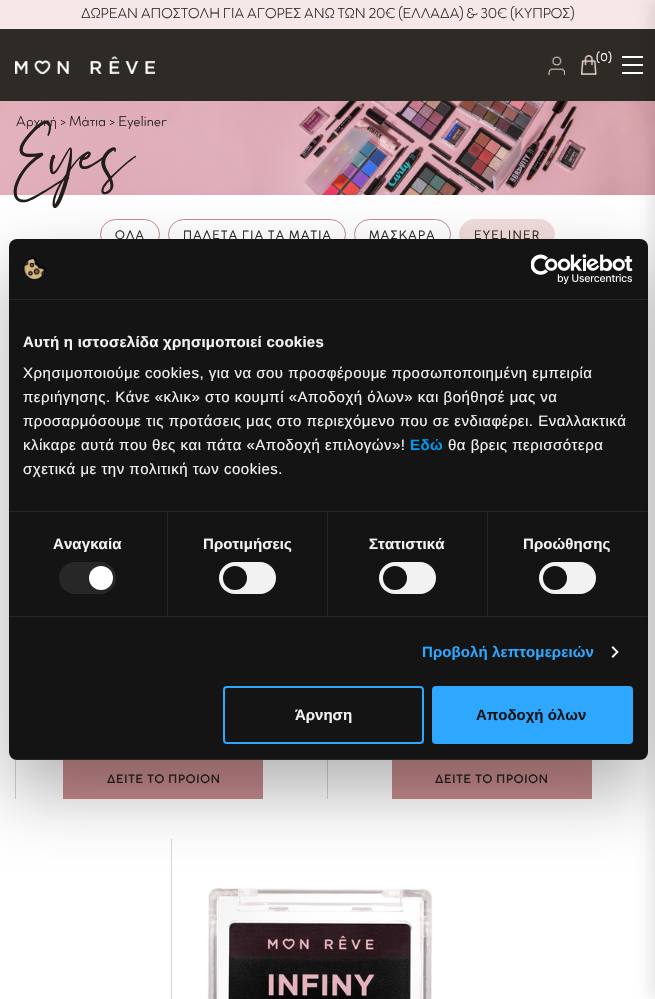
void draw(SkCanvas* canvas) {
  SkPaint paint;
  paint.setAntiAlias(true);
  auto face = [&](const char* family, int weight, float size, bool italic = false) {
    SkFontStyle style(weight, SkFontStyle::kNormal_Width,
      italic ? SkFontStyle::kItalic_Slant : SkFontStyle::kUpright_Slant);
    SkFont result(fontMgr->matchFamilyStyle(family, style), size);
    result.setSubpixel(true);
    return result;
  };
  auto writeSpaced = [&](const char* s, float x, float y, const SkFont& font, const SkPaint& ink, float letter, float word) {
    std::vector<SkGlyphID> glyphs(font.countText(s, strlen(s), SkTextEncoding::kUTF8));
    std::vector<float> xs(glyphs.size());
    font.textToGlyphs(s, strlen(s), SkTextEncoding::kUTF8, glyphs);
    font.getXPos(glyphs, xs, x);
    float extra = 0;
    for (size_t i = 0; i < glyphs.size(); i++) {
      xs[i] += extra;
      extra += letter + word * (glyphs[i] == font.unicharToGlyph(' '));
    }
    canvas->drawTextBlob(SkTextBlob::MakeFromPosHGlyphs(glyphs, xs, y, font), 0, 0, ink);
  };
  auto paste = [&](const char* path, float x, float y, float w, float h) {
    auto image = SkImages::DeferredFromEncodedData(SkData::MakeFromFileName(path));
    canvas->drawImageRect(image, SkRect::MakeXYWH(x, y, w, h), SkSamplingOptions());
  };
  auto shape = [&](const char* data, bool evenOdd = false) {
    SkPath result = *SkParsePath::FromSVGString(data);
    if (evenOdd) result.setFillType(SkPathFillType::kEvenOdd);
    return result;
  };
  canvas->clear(0xffffffff);
  paint.setColor(0xff2e2a25);
  canvas->drawRect(SkRect::MakeXYWH(0, 29, 655, 72), paint);
  paint.setColor(0xfff6e8e7);
  canvas->drawRect(SkRect::MakeXYWH(0, 0, 655, 29), paint);
  paste("img/1.png", 15, 56, 140, 18);
  paste("img/2.png", 548, 56, 17, 19);
  paste("img/3.png", 581, 55, 16, 20);
  {
    const struct { float x, y, w, h; SkColor color; } items[] = {
      {622, 56, 21, 2, 0xffffffff},
      {622, 64, 21, 2, 0xffffffff},
      {622, 72, 21, 2, 0xffffffff},
    };
    for (auto [x, y, w, h, color] : items) {
      paint.setColor(color);
      canvas->drawRect(SkRect::MakeXYWH(x, y, w, h), paint);
    }
  }
  paste("img/4.png", 0, 101, 655, 94);
  paint.setStroke(true);
  paint.setStrokeWidth(1);
  paint.setColor(0xffc68b8d);
  canvas->drawRoundRect(SkRect::MakeXYWH(100.5f, 219.5f, 59, 30), 15, 15, paint);
  canvas->drawRoundRect(SkRect::MakeXYWH(168.5f, 219.5f, 177, 30), 15, 15, paint);
  canvas->drawRoundRect(SkRect::MakeXYWH(354.5f, 219.5f, 96, 30), 15, 15, paint);
  paint.setStroke(false);
  paint.setColor(0xfff1dcda);
  canvas->drawRoundRect(SkRect::MakeXYWH(459.5f, 219.5f, 95, 30), 15, 15, paint);
  paint.setStroke(true);
  canvas->drawRoundRect(SkRect::MakeXYWH(459.5f, 219.5f, 95, 30), 15, 15, paint);
  paint.setStroke(false);
  {
    const struct { float x, y, w, h; SkColor color; } items[] = {
      {327, 760, 1, 39, 0xffd5d4d3},
      {15, 759, 1, 40, 0xffd5d4d3},
      {63, 760, 200, 39, 0xffc68b8d},
      {392, 760, 200, 39, 0xffc68b8d},
      {171, 839, 1, 160, 0xffd5d4d3},
    };
    for (auto [x, y, w, h, color] : items) {
      paint.setColor(color);
      canvas->drawRect(SkRect::MakeXYWH(x, y, w, h), paint);
    }
  }
  paste("img/5.png", 206, 888, 227, 111);
  paint.setColor(0x4d000000);
  paint.setMaskFilter(SkMaskFilter::MakeBlur(kNormal_SkBlurStyle, 34));
  canvas->drawRoundRect(SkRect::MakeXYWH(9, 271, 639, 521), 8, 8, paint);
  paint.setMaskFilter(nullptr);
  auto f0 = face("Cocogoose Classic", 300, 14);
  paint.setColor(0xff2e2a25);
  canvas->drawString("ΔΩΡΕΑΝ ΑΠΟΣΤΟΛΗ ΓΙΑ ΑΓΟΡΕΣ ΑΝΩ ΤΩΝ 20€ (ΕΛΛΑΔΑ) & 30€ (ΚΥΠΡΟΣ)", 81, 18, f0, paint);
  auto f1 = face("Cocogoose Classic", 400, 11);
  paint.setColor(0xffffffff);
  writeSpaced("(0)", 596, 61, f1, paint, 1, 0);
  paint.setColor(0xff221c1c);
  writeSpaced("Αρχική > Μάτια > Eyeliner", 16, 126, f0, paint, 0.25f, 0);
  auto f2 = face("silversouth", 400, 90);
  canvas->drawString("Eyes", 16, 184, f2, paint);
  auto f3 = face("Cocogoose Classic", 400, 12);
  paint.setColor(0xff2e2a25);
  {
    const struct { const char* s; float x, y; } items[] = {
      {"ΟΛΑ", 115, 239},
      {"ΠΑΛΕΤΑ ΓΙΑ ΤΑ ΜΑΤΙΑ", 183, 239},
      {"ΜΑΣΚΑΡΑ", 369, 239},
      {"EYELINER", 474, 239},
    };
    for (auto [s, x, y] : items) {
      writeSpaced(s, x, y, f3, paint, 1.25f, 0);
    }
  }
  auto f4 = face("Cocogoose Classic", 500, 12);
  paint.setColor(0xff221c1c);
  writeSpaced("ΔΕΙΤΕ ΤΟ ΠΡΟΙΟΝ", 107, 783, f4, paint, 0.75f, 0);
  writeSpaced("ΔΕΙΤΕ ΤΟ ΠΡΟΙΟΝ", 435, 783, f4, paint, 0.75f, 0);
  paint.setColor(0xff141414);
  canvas->drawRoundRect(SkRect::MakeXYWH(9, 239, 639, 521), 8, 8, paint);
  paint.setColor(0xff272727);
  canvas->drawRect(SkRect::MakeXYWH(9, 299, 639, 1), paint);
  paste("img/6.png", 23, 257, 23, 23);
  paste("img/7.png", 531, 254, 102, 30);
  canvas->drawRect(SkRect::MakeXYWH(9, 511, 639, 1), paint);
  auto f5 = face("Liberation Sans", 700, 15);
  paint.setColor(0xfff2f2f2);
  writeSpaced("Αυτή η ιστοσελίδα χρησιμοποιεί cookies", 23, 347, f5, paint, 0.25f, 0);
  auto f6 = face("Liberation Sans", 400, 15);
  {
    const struct { const char* s; float x, y; } items[] = {
      {"Χρησιμοποιούμε cookies, για να σου προσφέρουμε προσωποποιημένη εμπειρία", 23, 378},
      {"περιήγησης. Κάνε «κλικ» στο κουμπί «Αποδοχή όλων» και βοήθησέ μας να", 23, 402},
      {"προσαρμόσουμε τις προτάσεις μας στο περιεχόμενο που σε ενδιαφέρει. Εναλλακτικά", 23, 426},
      {"κλίκαρε αυτά που θες και πάτα «Αποδοχή επιλογών»!", 23, 450},
    };
    for (auto [s, x, y] : items) {
      writeSpaced(s, x, y, f6, paint, 0.5f, 0);
    }
  }
  paint.setColor(0xff009aee);
  writeSpaced("Εδώ", 410, 450, f5, paint, 0.5f, 0);
  paint.setColor(0xfff2f2f2);
  writeSpaced("θα βρεις περισσότερα", 448, 450, f6, paint, 0.5f, 0);
  writeSpaced("σχετικά με την πολιτική των cookies.", 23, 474, f6, paint, 0.5f, 0);
  paint.setColor(0xff272727);
  canvas->drawRect(SkRect::MakeXYWH(9, 616, 639, 1), paint);
  canvas->drawRect(SkRect::MakeXYWH(167, 512, 1, 104), paint);
  paint.setColor(0xfff2f2f2);
  writeSpaced("Αναγκαία", 53, 549, f5, paint, 0.1f, 0);
  paint.setColor(0xff272727);
  canvas->drawRoundRect(SkRect::MakeXYWH(59, 562, 57, 32), 16, 16, paint);
  paint.setColor(0xffffffff);
  canvas->drawCircle(101, 578, 12, paint);
  paint.setColor(0xff272727);
  canvas->drawRect(SkRect::MakeXYWH(327, 512, 1, 104), paint);
  paint.setColor(0xfff2f2f2);
  writeSpaced("Προτιμήσεις", 203, 549, f5, paint, 0.1f, 0);
  canvas->drawRoundRect(SkRect::MakeXYWH(219, 562, 57, 32), 16, 16, paint);
  paint.setColor(0xff141414);
  canvas->drawCircle(235, 578, 12, paint);
  paint.setColor(0xff272727);
  canvas->drawRect(SkRect::MakeXYWH(487, 512, 1, 104), paint);
  paint.setColor(0xfff2f2f2);
  writeSpaced("Στατιστικά", 369, 549, f5, paint, 0.1f, 0);
  canvas->drawRoundRect(SkRect::MakeXYWH(379, 562, 57, 32), 16, 16, paint);
  paint.setColor(0xff141414);
  canvas->drawCircle(395, 578, 12, paint);
  paint.setColor(0xfff2f2f2);
  writeSpaced("Προώθησης", 523, 549, f5, paint, 0.1f, 0);
  canvas->drawRoundRect(SkRect::MakeXYWH(539, 562, 57, 32), 16, 16, paint);
  paint.setColor(0xff141414);
  canvas->drawCircle(555, 578, 12, paint);
  paint.setColor(0xff2ea7ff);
  writeSpaced("Προβολή λεπτομερειών", 422, 657, f5, paint, 0.1f, 0);
  paint.setColor(0xfff2f2f2);
  canvas->drawPath(shape("M613 646L618.5 652L617.5 653.5L611.5 647.5Z"), paint);
  canvas->drawPath(shape("M617.5 650.5L618.5 652L613 658L611.5 656.5Z"), paint);
  canvas->save();
  canvas->clipPath(shape("M17 239H640C644.5 239 648 242.5 648 247V752C648 756.5 644.5 760 640 760H17C12.5 760 9 756.5 9 752V247C9 242.5 12.5 239 17 239Z"), true);
  paint.setColor(0x14ffffff);
  canvas->drawRect(SkRect::MakeXYWH(9, 759, 639, 1), paint);
  canvas->restore();
  paint.setStroke(true);
  paint.setStrokeWidth(2);
  paint.setColor(0xff2ea7ff);
  canvas->drawRoundRect(SkRect::MakeXYWH(224, 687, 199, 56), 3, 3, paint);
  paint.setStroke(false);
  paint.setColor(0xfff2f2f2);
  canvas->drawString("Άρνηση", 295, 720, f5, paint);
  paint.setColor(0xff2ea7ff);
  canvas->drawRoundRect(SkRect::MakeXYWH(433, 687, 199, 56), 3, 3, paint);
  paint.setStroke(true);
  canvas->drawRoundRect(SkRect::MakeXYWH(433, 687, 199, 56), 3, 3, paint);
  paint.setStroke(false);
  paint.setColor(0x1a000000);
  paint.setMaskFilter(SkMaskFilter::MakeBlur(kNormal_SkBlurStyle, 7.5f));
  canvas->drawRect(SkRect::MakeXYWH(650, 0, 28, 999), paint);
  paint.setMaskFilter(nullptr);
  paint.setColor(0xff141414);
  canvas->drawString("Αποδοχή όλων", 476, 720, f5, paint);
}
